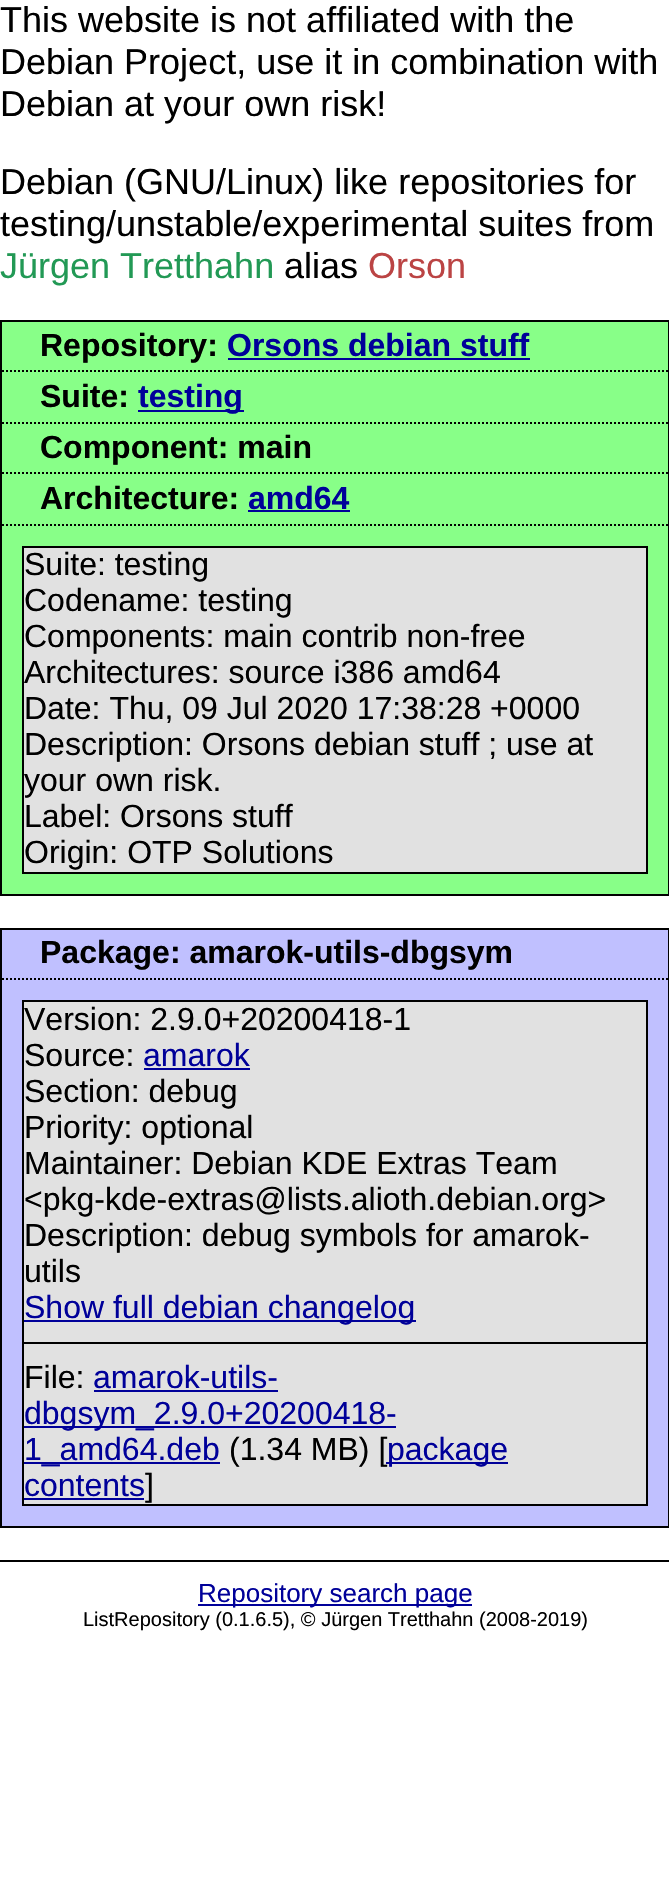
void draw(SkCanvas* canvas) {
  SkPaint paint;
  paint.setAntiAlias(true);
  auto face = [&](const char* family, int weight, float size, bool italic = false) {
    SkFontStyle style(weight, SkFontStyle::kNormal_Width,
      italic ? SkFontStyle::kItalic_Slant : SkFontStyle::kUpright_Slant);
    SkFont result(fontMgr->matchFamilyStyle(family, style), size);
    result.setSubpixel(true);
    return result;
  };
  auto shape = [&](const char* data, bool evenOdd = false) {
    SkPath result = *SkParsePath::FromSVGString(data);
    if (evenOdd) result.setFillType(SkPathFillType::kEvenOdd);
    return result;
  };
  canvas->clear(0xffffffff);
  paint.setColor(0xff88ff88);
  canvas->drawRect(SkRect::MakeXYWH(1, 321, 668, 574), paint);
  paint.setStroke(true);
  paint.setStrokeWidth(2);
  paint.setColor(0xff000000);
  canvas->drawRect(SkRect::MakeXYWH(1, 321, 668, 574), paint);
  paint.setPathEffect(SkDashPathEffect::Make({{2, 2}}, 0));
  canvas->drawPath(shape("M2 371H668"), paint);
  paint.setPathEffect(nullptr);
  paint.setStroke(false);
  paint.setColor(0xff000099);
  canvas->drawRect(SkRect::MakeXYWH(228, 358, 302, 2), paint);
  paint.setStroke(true);
  paint.setColor(0xff000000);
  paint.setPathEffect(SkDashPathEffect::Make({{2, 2}}, 0));
  canvas->drawPath(shape("M2 423H668"), paint);
  paint.setPathEffect(nullptr);
  paint.setStroke(false);
  paint.setColor(0xff000099);
  canvas->drawRect(SkRect::MakeXYWH(138, 410, 106, 2), paint);
  paint.setStroke(true);
  paint.setColor(0xff000000);
  paint.setPathEffect(SkDashPathEffect::Make({{2, 2}}, 0));
  canvas->drawPath(shape("M2 473H668"), paint);
  paint.setPathEffect(nullptr);
  paint.setPathEffect(SkDashPathEffect::Make({{2, 2}}, 0));
  canvas->drawPath(shape("M2 525H668"), paint);
  paint.setPathEffect(nullptr);
  paint.setStroke(false);
  paint.setColor(0xff000099);
  canvas->drawRect(SkRect::MakeXYWH(248, 510, 102, 2), paint);
  paint.setColor(0xffe1e1e1);
  canvas->drawRect(SkRect::MakeXYWH(23, 547, 624, 326), paint);
  paint.setStroke(true);
  paint.setColor(0xff000000);
  canvas->drawRect(SkRect::MakeXYWH(23, 547, 624, 326), paint);
  paint.setStroke(false);
  paint.setColor(0xffc0c0ff);
  canvas->drawRect(SkRect::MakeXYWH(1, 929, 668, 598), paint);
  paint.setStroke(true);
  paint.setColor(0xff000000);
  canvas->drawRect(SkRect::MakeXYWH(1, 929, 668, 598), paint);
  paint.setPathEffect(SkDashPathEffect::Make({{2, 2}}, 0));
  canvas->drawPath(shape("M2 979H668"), paint);
  paint.setPathEffect(nullptr);
  paint.setStroke(false);
  paint.setColor(0xffe1e1e1);
  canvas->drawRect(SkRect::MakeXYWH(23, 1001, 624, 504), paint);
  paint.setStroke(true);
  paint.setColor(0xff000000);
  canvas->drawRect(SkRect::MakeXYWH(23, 1001, 624, 504), paint);
  paint.setStroke(false);
  {
    const struct { float x, y, w, h; SkColor color; } items[] = {
      {144, 1068, 106, 2, 0xff000099},
      {24, 1320, 392, 2, 0xff000099},
      {24, 1342, 622, 2, 0xff000000},
      {94, 1390, 184, 2, 0xff000099},
      {24, 1426, 372, 2, 0xff000099},
      {24, 1462, 196, 2, 0xff000099},
      {24, 1498, 120, 2, 0xff000099},
      {0, 1560, 669, 2, 0xff000000},
      {198, 1604, 274, 2, 0xff000099},
    };
    for (auto [x, y, w, h, color] : items) {
      paint.setColor(color);
      canvas->drawRect(SkRect::MakeXYWH(x, y, w, h), paint);
    }
  }
  auto f0 = face("Liberation Sans", 400, 36);
  paint.setColor(0xff000000);
  {
    const struct { const char* s; float x, y; } items[] = {
      {"This website is not affiliated with the", 0, 32},
      {"Debian Project, use it in combination with", 0, 74},
      {"Debian at your own risk!", 0, 116},
      {"Debian (GNU/Linux) like repositories for", 0, 194},
      {"testing/unstable/experimental suites from", 0, 236},
    };
    for (auto [s, x, y] : items) {
      canvas->drawString(s, x, y, f0, paint);
    }
  }
  paint.setColor(0xff229955);
  canvas->drawString("Jürgen Tretthahn", 0, 278, f0, paint);
  paint.setColor(0xff000000);
  canvas->drawString("alias", 284, 278, f0, paint);
  paint.setColor(0xffbb4444);
  canvas->drawString("Orson", 368, 278, f0, paint);
  auto f1 = face("Liberation Sans", 700, 32);
  paint.setColor(0xff000000);
  canvas->drawString("Repository:", 40, 356, f1, paint);
  paint.setColor(0xff000099);
  canvas->drawString("Orsons debian stuff", 227, 356, f1, paint);
  paint.setColor(0xff000000);
  canvas->drawString("Suite:", 40, 407, f1, paint);
  paint.setColor(0xff000099);
  canvas->drawString("testing", 138, 407, f1, paint);
  paint.setColor(0xff000000);
  canvas->drawString("Component: main", 40, 458, f1, paint);
  canvas->drawString("Architecture:", 40, 509, f1, paint);
  paint.setColor(0xff000099);
  canvas->drawString("amd64", 248, 509, f1, paint);
  auto f2 = face("Liberation Sans", 400, 32);
  paint.setColor(0xff000000);
  {
    const struct { const char* s; float x, y; } items[] = {
      {"Suite: testing", 24, 575},
      {"Codename: testing", 24, 611},
      {"Components: main contrib non-free", 24, 647},
      {"Architectures: source i386 amd64", 24, 683},
      {"Date: Thu, 09 Jul 2020 17:38:28 +0000", 24, 719},
      {"Description: Orsons debian stuff ; use at", 24, 755},
      {"your own risk.", 24, 791},
      {"Label: Orsons stuff", 24, 827},
      {"Origin: OTP Solutions", 24, 863},
    };
    for (auto [s, x, y] : items) {
      canvas->drawString(s, x, y, f2, paint);
    }
  }
  canvas->drawString("Package: amarok-utils-dbgsym", 40, 963, f1, paint);
  canvas->drawString("Version: 2.9.0+20200418-1", 24, 1030, f2, paint);
  canvas->drawString("Source:", 24, 1066, f2, paint);
  paint.setColor(0xff000099);
  canvas->drawString("amarok", 143, 1066, f2, paint);
  paint.setColor(0xff000000);
  {
    const struct { const char* s; float x, y; } items[] = {
      {"Section: debug", 24, 1102},
      {"Priority: optional", 24, 1138},
      {"Maintainer: Debian KDE Extras Team", 24, 1174},
      {"<pkg-kde-extras@lists.alioth.debian.org>", 24, 1210},
      {"Description: debug symbols for amarok-", 24, 1246},
      {"utils", 24, 1282},
    };
    for (auto [s, x, y] : items) {
      canvas->drawString(s, x, y, f2, paint);
    }
  }
  paint.setColor(0xff000099);
  canvas->drawString("Show full debian changelog", 24, 1318, f2, paint);
  paint.setColor(0xff000000);
  canvas->drawString("File:", 24, 1388, f2, paint);
  paint.setColor(0xff000099);
  {
    const struct { const char* s; float x, y; } items[] = {
      {"amarok-utils-", 93, 1388},
      {"dbgsym_2.9.0+20200418-", 24, 1424},
      {"1_amd64.deb", 24, 1460},
    };
    for (auto [s, x, y] : items) {
      canvas->drawString(s, x, y, f2, paint);
    }
  }
  paint.setColor(0xff000000);
  canvas->drawString("(1.34 MB) [", 229, 1460, f2, paint);
  paint.setColor(0xff000099);
  canvas->drawRect(SkRect::MakeXYWH(386, 1462, 122, 2), paint);
  canvas->drawString("package", 387, 1460, f2, paint);
  canvas->drawString("contents", 24, 1496, f2, paint);
  paint.setColor(0xff000000);
  canvas->drawString("]", 145, 1496, f2, paint);
  auto f3 = face("Liberation Sans", 400, 26);
  paint.setColor(0xff000099);
  canvas->drawString("Repository search page", 198, 1602, f3, paint);
  auto f4 = face("Liberation Sans", 400, 20);
  paint.setColor(0xff000000);
  canvas->drawString("ListRepository (0.1.6.5), © Jürgen Tretthahn (2008-2019)", 83, 1626, f4, paint);
}
